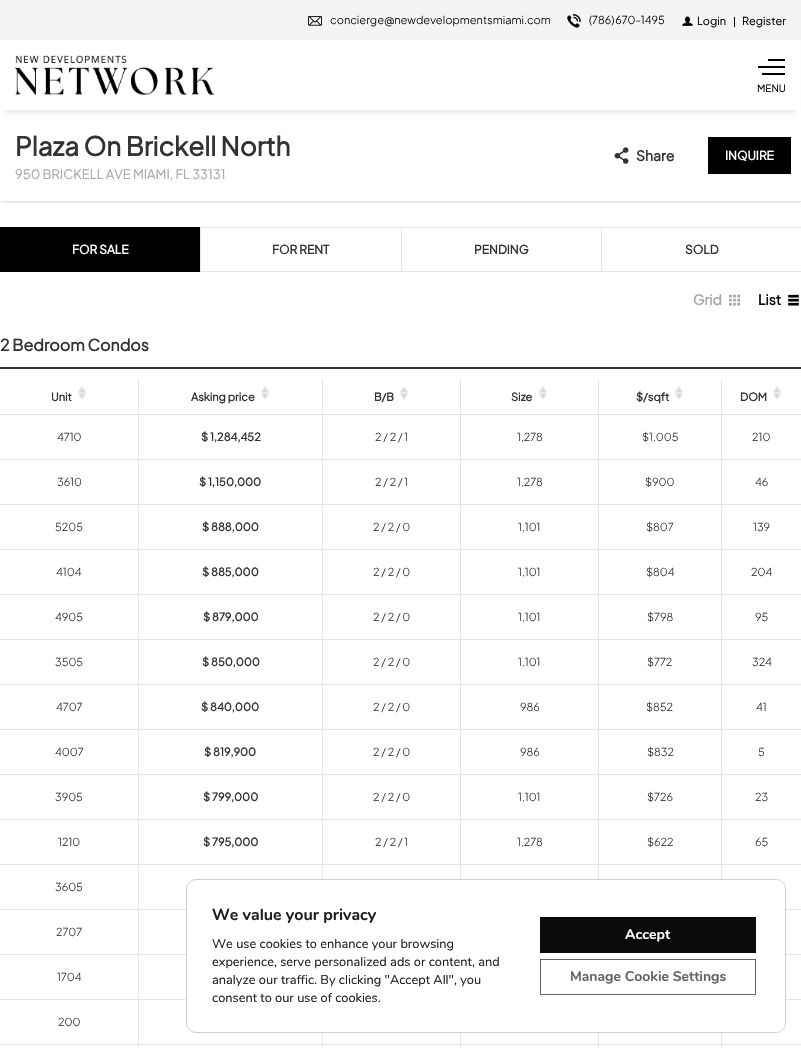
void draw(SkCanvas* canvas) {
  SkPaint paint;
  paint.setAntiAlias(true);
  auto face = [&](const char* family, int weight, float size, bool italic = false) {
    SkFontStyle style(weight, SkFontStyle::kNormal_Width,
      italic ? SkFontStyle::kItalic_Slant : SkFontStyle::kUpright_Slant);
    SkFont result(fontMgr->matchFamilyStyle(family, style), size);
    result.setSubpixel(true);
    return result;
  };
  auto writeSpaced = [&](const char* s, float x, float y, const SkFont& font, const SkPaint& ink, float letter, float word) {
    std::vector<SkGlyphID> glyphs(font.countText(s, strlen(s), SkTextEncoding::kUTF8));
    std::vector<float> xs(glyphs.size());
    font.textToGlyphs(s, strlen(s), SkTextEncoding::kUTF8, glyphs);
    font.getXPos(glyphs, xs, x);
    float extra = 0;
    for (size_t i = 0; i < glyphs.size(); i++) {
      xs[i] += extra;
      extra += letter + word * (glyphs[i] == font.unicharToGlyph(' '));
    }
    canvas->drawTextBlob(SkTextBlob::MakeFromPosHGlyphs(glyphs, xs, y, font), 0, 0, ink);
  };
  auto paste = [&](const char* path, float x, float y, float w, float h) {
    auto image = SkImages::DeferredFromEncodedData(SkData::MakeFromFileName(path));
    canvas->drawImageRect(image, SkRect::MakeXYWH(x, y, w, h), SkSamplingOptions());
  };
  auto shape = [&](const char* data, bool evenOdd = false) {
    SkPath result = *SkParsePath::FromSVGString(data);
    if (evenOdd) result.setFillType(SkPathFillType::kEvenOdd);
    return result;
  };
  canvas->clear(0xffffffff);
  paint.setColor(0x29000000);
  paint.setMaskFilter(SkMaskFilter::MakeBlur(kNormal_SkBlurStyle, 1.5f));
  canvas->drawRect(SkRect::MakeXYWH(2, 114, 797, 88), paint);
  paint.setMaskFilter(nullptr);
  paint.setColor(0xffffffff);
  canvas->drawRect(SkRect::MakeXYWH(0, 112, 801, 89), paint);
  paint.setColor(0x1a000000);
  paint.setMaskFilter(SkMaskFilter::MakeBlur(kNormal_SkBlurStyle, 3));
  canvas->drawRect(SkRect::MakeXYWH(6, 14, 789, 98), paint);
  paint.setMaskFilter(nullptr);
  paint.setColor(0xffffffff);
  canvas->drawRect(SkRect::MakeXYWH(2, 40, 797, 70), paint);
  paint.setColor(0xfff3f4f4);
  canvas->drawRect(SkRect::MakeXYWH(0, 0, 801, 40), paint);
  paste("img/1.png", 308, 16, 14, 10);
  paste("img/2.png", 567, 14, 14, 14);
  paste("img/3.png", 682, 16, 11, 10);
  paint.setColor(0xff000000);
  canvas->drawRect(SkRect::MakeXYWH(734, 17, 1, 10), paint);
  paste("img/4.png", 15, 55, 200, 40);
  {
    const struct { float x, y, w, h; SkColor color; } items[] = {
      {768, 59, 17, 2, 0xff000000},
      {758, 66, 27, 2, 0xff000000},
      {762, 73, 23, 2, 0xff000000},
      {0, 201, 801, 1, 0xffe5e5e5},
    };
    for (auto [x, y, w, h, color] : items) {
      paint.setColor(color);
      canvas->drawRect(SkRect::MakeXYWH(x, y, w, h), paint);
    }
  }
  paste("img/5.png", 614, 147, 15, 17);
  paint.setColor(0xff000000);
  canvas->drawRect(SkRect::MakeXYWH(708, 137, 83, 37), paint);
  canvas->drawRect(SkRect::MakeXYWH(0, 227, 200, 45), paint);
  paint.setStroke(true);
  paint.setStrokeWidth(1);
  paint.setColor(0xffe5e5e5);
  canvas->drawRect(SkRect::MakeXYWH(200.5f, 227.5f, 201, 44), paint);
  canvas->drawRect(SkRect::MakeXYWH(401.5f, 227.5f, 200, 44), paint);
  canvas->drawRect(SkRect::MakeXYWH(601.5f, 227.5f, 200, 44), paint);
  paste("img/6.png", 729, 294, 11, 12);
  paste("img/7.png", 788, 294, 11, 12);
  paint.setStroke(false);
  paint.setColor(0xff333333);
  canvas->drawRect(SkRect::MakeXYWH(0, 367, 801, 2), paint);
  paste("img/8.png", 77, 386, 10, 14);
  paint.setColor(0xffe5e5e5);
  canvas->drawPath(shape("M138 414V379H139V413Z"), paint);
  paste("img/8.png", 260, 386, 10, 14);
  canvas->drawPath(shape("M322 414V379H323V413Z"), paint);
  paste("img/8.png", 399, 386, 10, 14);
  canvas->drawPath(shape("M460 414V379H461V413Z"), paint);
  paste("img/8.png", 538, 386, 10, 14);
  canvas->drawPath(shape("M598 414V379H599V413Z"), paint);
  paste("img/8.png", 674, 386, 10, 14);
  canvas->drawPath(shape("M721 414V379H722V413Z"), paint);
  paste("img/8.png", 772, 386, 10, 14);
  {
    const struct { float x, y, w, h; SkColor color; } items[] = {
      {0, 414, 801, 1, 0xffe5e5e5},
      {138, 414, 1, 45, 0xffe5e5e5},
      {322, 414, 1, 45, 0xffe5e5e5},
      {460, 414, 1, 45, 0xffe5e5e5},
      {598, 414, 1, 45, 0xffe5e5e5},
      {721, 414, 1, 45, 0xffe5e5e5},
      {0, 459, 801, 1, 0xffe5e5e5},
      {138, 459, 1, 45, 0xffe5e5e5},
      {322, 459, 1, 45, 0xffe5e5e5},
      {460, 459, 1, 45, 0xffe5e5e5},
      {598, 459, 1, 45, 0xffe5e5e5},
      {721, 459, 1, 45, 0xffe5e5e5},
      {0, 504, 801, 1, 0xffe5e5e5},
      {138, 504, 1, 45, 0xffe5e5e5},
      {322, 504, 1, 45, 0xffe5e5e5},
      {460, 504, 1, 45, 0xffe5e5e5},
      {598, 504, 1, 45, 0xffe5e5e5},
      {721, 504, 1, 45, 0xffe5e5e5},
      {0, 549, 801, 1, 0xffe5e5e5},
      {138, 549, 1, 45, 0xffe5e5e5},
      {322, 549, 1, 45, 0xffe5e5e5},
      {460, 549, 1, 45, 0xffe5e5e5},
      {598, 549, 1, 45, 0xffe5e5e5},
      {721, 549, 1, 45, 0xffe5e5e5},
      {0, 594, 801, 1, 0xffe5e5e5},
      {138, 594, 1, 45, 0xffe5e5e5},
      {322, 594, 1, 45, 0xffe5e5e5},
      {460, 594, 1, 45, 0xffe5e5e5},
      {598, 594, 1, 45, 0xffe5e5e5},
      {721, 594, 1, 45, 0xffe5e5e5},
      {0, 639, 801, 1, 0xffe5e5e5},
      {138, 639, 1, 45, 0xffe5e5e5},
      {322, 639, 1, 45, 0xffe5e5e5},
      {460, 639, 1, 45, 0xffe5e5e5},
      {598, 639, 1, 45, 0xffe5e5e5},
      {721, 639, 1, 45, 0xffe5e5e5},
      {0, 684, 801, 1, 0xffe5e5e5},
      {138, 684, 1, 45, 0xffe5e5e5},
      {322, 684, 1, 45, 0xffe5e5e5},
      {460, 684, 1, 45, 0xffe5e5e5},
      {598, 684, 1, 45, 0xffe5e5e5},
      {721, 684, 1, 45, 0xffe5e5e5},
      {0, 729, 801, 1, 0xffe5e5e5},
      {138, 729, 1, 45, 0xffe5e5e5},
      {322, 729, 1, 45, 0xffe5e5e5},
      {460, 729, 1, 45, 0xffe5e5e5},
      {598, 729, 1, 45, 0xffe5e5e5},
      {721, 729, 1, 45, 0xffe5e5e5},
      {0, 774, 801, 1, 0xffe5e5e5},
      {138, 774, 1, 45, 0xffe5e5e5},
      {322, 774, 1, 45, 0xffe5e5e5},
      {460, 774, 1, 45, 0xffe5e5e5},
      {598, 774, 1, 45, 0xffe5e5e5},
      {721, 774, 1, 45, 0xffe5e5e5},
      {0, 819, 801, 1, 0xffe5e5e5},
      {138, 819, 1, 45, 0xffe5e5e5},
      {322, 819, 1, 45, 0xffe5e5e5},
      {460, 819, 1, 45, 0xffe5e5e5},
      {598, 819, 1, 45, 0xffe5e5e5},
      {721, 819, 1, 45, 0xffe5e5e5},
      {0, 864, 801, 1, 0xffe5e5e5},
      {138, 864, 1, 45, 0xffe5e5e5},
      {322, 864, 1, 15, 0xffe5e5e5},
      {460, 864, 1, 15, 0xffe5e5e5},
      {598, 864, 1, 15, 0xffe5e5e5},
      {721, 864, 1, 15, 0xffe5e5e5},
      {0, 909, 186, 1, 0xffe5e5e5},
      {138, 909, 1, 45, 0xffe5e5e5},
      {786, 909, 15, 1, 0xffe5e5e5},
      {0, 954, 186, 1, 0xffe5e5e5},
      {138, 954, 1, 45, 0xffe5e5e5},
      {786, 954, 15, 1, 0xffe5e5e5},
      {0, 999, 186, 1, 0xffe5e5e5},
      {138, 999, 1, 45, 0xffe5e5e5},
      {786, 999, 15, 1, 0xffe5e5e5},
      {721, 1033, 1, 11, 0xffe5e5e5},
      {322, 1033, 1, 11, 0xffe5e5e5},
      {460, 1033, 1, 11, 0xffe5e5e5},
      {598, 1033, 1, 11, 0xffe5e5e5},
      {0, 1044, 801, 1, 0xffe5e5e5},
      {138, 1044, 1, 4, 0xffe5e5e5},
      {322, 1044, 1, 4, 0xffe5e5e5},
      {460, 1044, 1, 4, 0xffe5e5e5},
      {598, 1044, 1, 4, 0xffe5e5e5},
      {721, 1044, 1, 4, 0xffe5e5e5},
    };
    for (auto [x, y, w, h, color] : items) {
      paint.setColor(color);
      canvas->drawRect(SkRect::MakeXYWH(x, y, w, h), paint);
    }
  }
  paint.setStroke(true);
  paint.setColor(0xffd3ced2);
  canvas->drawRoundRect(SkRect::MakeXYWH(186.5f, 879.5f, 599, 153), 9.5f, 9.5f, paint);
  paint.setStroke(false);
  paint.setColor(0xff0a0a0a);
  canvas->drawRect(SkRect::MakeXYWH(540, 917, 216, 36), paint);
  paint.setStroke(true);
  paint.setColor(0xff636363);
  canvas->drawRect(SkRect::MakeXYWH(540.5f, 959.5f, 215, 35), paint);
  auto f0 = face("Plus Jakarta Sans", 300, 11);
  paint.setStroke(false);
  paint.setColor(0xff000000);
  canvas->drawString("concierge@newdevelopmentsmiami.com", 330, 24, f0, paint);
  writeSpaced("(786) 670-1495", 589, 24, f0, paint, 0, -1);
  auto f1 = face("Plus Jakarta Sans", 400, 11);
  canvas->drawString("Login", 697, 25, f1, paint);
  canvas->drawString("Register", 742, 25, f1, paint);
  auto f2 = face("Plus Jakarta Sans", 400, 10);
  canvas->drawString("MENU", 757, 92, f2, paint);
  auto f3 = face("Plus Jakarta Sans", 700, 26);
  paint.setColor(0xff333333);
  canvas->drawString("Plaza On Brickell North", 15, 156, f3, paint);
  auto f4 = face("Plus Jakarta Sans", 400, 13);
  paint.setColor(0xffa7a6ae);
  canvas->drawString("950 BRICKELL AVE MIAMI, FL 33131", 15, 179, f4, paint);
  auto f5 = face("Plus Jakarta Sans", 700, 14);
  paint.setColor(0xff333333);
  canvas->drawString("Share", 636, 161, f5, paint);
  auto f6 = face("Plus Jakarta Sans", 700, 12);
  paint.setColor(0xffffffff);
  canvas->drawString("INQUIRE", 725, 160, f6, paint);
  canvas->drawString("FOR SALE", 72, 254, f6, paint);
  paint.setColor(0xff333333);
  {
    const struct { const char* s; float x, y; } items[] = {
      {"FOR RENT", 272, 254},
      {"PENDING", 474, 254},
      {"SOLD", 685, 254},
    };
    for (auto [s, x, y] : items) {
      canvas->drawString(s, x, y, f6, paint);
    }
  }
  paint.setColor(0xffa7a6ae);
  canvas->drawString("Grid", 693, 305, f5, paint);
  paint.setColor(0xff000000);
  canvas->drawString("List", 758, 305, f5, paint);
  auto f7 = face("Plus Jakarta Sans", 700, 16);
  paint.setColor(0xff333333);
  canvas->drawString("2 Bedroom Condos", 0, 351, f7, paint);
  auto f8 = face("Plus Jakarta Sans", 700, 11);
  {
    const struct { const char* s; float x, y; } items[] = {
      {"Unit", 51, 401},
      {"Asking price", 191, 401},
      {"B/B", 374, 401},
      {"Size", 511, 401},
      {"$/sqft", 636, 401},
      {"DOM", 740, 401},
    };
    for (auto [s, x, y] : items) {
      canvas->drawString(s, x, y, f8, paint);
    }
  }
  canvas->drawString("4710", 57, 441, f0, paint);
  canvas->drawString("$ 1,284,452", 201, 441, f8, paint);
  {
    const struct { const char* s; float x, y; } items[] = {
      {"2 / 2 / 1", 375, 441},
      {"1,278", 517, 441},
      {"$1,005", 642, 441},
      {"210", 752, 441},
      {"3610", 57, 486},
    };
    for (auto [s, x, y] : items) {
      canvas->drawString(s, x, y, f0, paint);
    }
  }
  canvas->drawString("$ 1,150,000", 199, 486, f8, paint);
  {
    const struct { const char* s; float x, y; } items[] = {
      {"2 / 2 / 1", 375, 486},
      {"1,278", 517, 486},
      {"$900", 645, 486},
      {"46", 755, 486},
      {"5205", 55, 531},
    };
    for (auto [s, x, y] : items) {
      canvas->drawString(s, x, y, f0, paint);
    }
  }
  canvas->drawString("$ 888,000", 202, 531, f8, paint);
  {
    const struct { const char* s; float x, y; } items[] = {
      {"2 / 2 / 0", 373, 531},
      {"1,101", 518, 531},
      {"$807", 646, 531},
      {"139", 753, 531},
      {"4104", 56, 576},
    };
    for (auto [s, x, y] : items) {
      canvas->drawString(s, x, y, f0, paint);
    }
  }
  canvas->drawString("$ 885,000", 202, 576, f8, paint);
  {
    const struct { const char* s; float x, y; } items[] = {
      {"2 / 2 / 0", 373, 576},
      {"1,101", 518, 576},
      {"$804", 646, 576},
      {"204", 751, 576},
      {"4905", 55, 621},
    };
    for (auto [s, x, y] : items) {
      canvas->drawString(s, x, y, f0, paint);
    }
  }
  canvas->drawString("$ 879,000", 203, 621, f8, paint);
  {
    const struct { const char* s; float x, y; } items[] = {
      {"2 / 2 / 0", 373, 621},
      {"1,101", 518, 621},
      {"$798", 647, 621},
      {"95", 755, 621},
      {"3505", 55, 666},
    };
    for (auto [s, x, y] : items) {
      canvas->drawString(s, x, y, f0, paint);
    }
  }
  canvas->drawString("$ 850,000", 202, 666, f8, paint);
  {
    const struct { const char* s; float x, y; } items[] = {
      {"2 / 2 / 0", 373, 666},
      {"1,101", 518, 666},
      {"$772", 647, 666},
      {"324", 752, 666},
      {"4707", 56, 711},
    };
    for (auto [s, x, y] : items) {
      canvas->drawString(s, x, y, f0, paint);
    }
  }
  canvas->drawString("$ 840,000", 201, 711, f8, paint);
  {
    const struct { const char* s; float x, y; } items[] = {
      {"2 / 2 / 0", 373, 711},
      {"986", 520, 711},
      {"$852", 646, 711},
      {"41", 756, 711},
      {"4007", 55, 756},
    };
    for (auto [s, x, y] : items) {
      canvas->drawString(s, x, y, f0, paint);
    }
  }
  canvas->drawString("$ 819,900", 204, 756, f8, paint);
  {
    const struct { const char* s; float x, y; } items[] = {
      {"2 / 2 / 0", 373, 756},
      {"986", 520, 756},
      {"$832", 647, 756},
      {"5", 758, 756},
      {"3905", 55, 801},
    };
    for (auto [s, x, y] : items) {
      canvas->drawString(s, x, y, f0, paint);
    }
  }
  canvas->drawString("$ 799,000", 203, 801, f8, paint);
  {
    const struct { const char* s; float x, y; } items[] = {
      {"2 / 2 / 0", 373, 801},
      {"1,101", 518, 801},
      {"$726", 647, 801},
      {"23", 755, 801},
      {"1210", 58, 846},
    };
    for (auto [s, x, y] : items) {
      canvas->drawString(s, x, y, f0, paint);
    }
  }
  canvas->drawString("$ 795,000", 203, 846, f8, paint);
  {
    const struct { const char* s; float x, y; } items[] = {
      {"2 / 2 / 1", 375, 846},
      {"1,278", 517, 846},
      {"$622", 647, 846},
      {"65", 755, 846},
      {"3605", 55, 891},
      {"2707", 56, 936},
      {"1704", 57, 981},
      {"200", 58, 1026},
    };
    for (auto [s, x, y] : items) {
      canvas->drawString(s, x, y, f0, paint);
    }
  }
  auto f9 = face("Nunito", 700, 16);
  paint.setColor(0xff202020);
  canvas->drawString("We value your privacy", 212, 920, f9, paint);
  auto f10 = face("Nunito", 400, 12.8f);
  {
    const struct { const char* s; float x, y; } items[] = {
      {"We use cookies to enhance your browsing", 212, 948},
      {"experience, serve personalized ads or content, and", 212, 966},
      {"analyze our traffic. By clicking \"Accept All\", you", 212, 984},
      {"consent to our use of cookies.", 212, 1002},
    };
    for (auto [s, x, y] : items) {
      canvas->drawString(s, x, y, f10, paint);
    }
  }
  auto f11 = face("Nunito", 700, 14);
  paint.setColor(0xffffffff);
  canvas->drawString("Accept", 625, 939, f11, paint);
  paint.setColor(0xff636363);
  canvas->drawString("Manage Cookie Settings", 570, 981, f11, paint);
}
